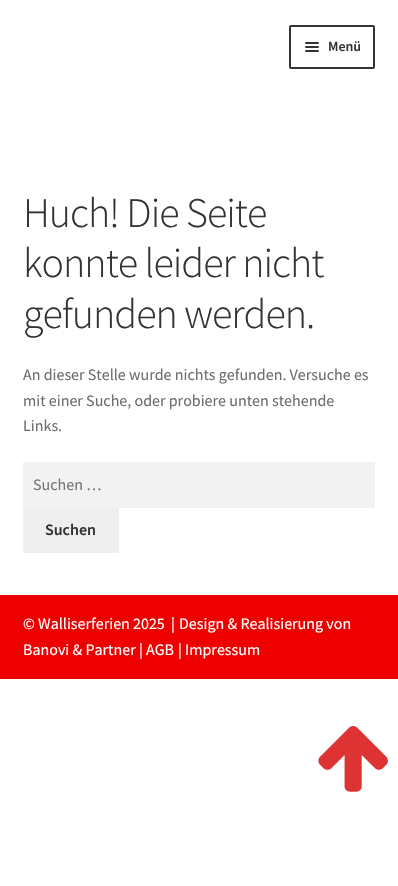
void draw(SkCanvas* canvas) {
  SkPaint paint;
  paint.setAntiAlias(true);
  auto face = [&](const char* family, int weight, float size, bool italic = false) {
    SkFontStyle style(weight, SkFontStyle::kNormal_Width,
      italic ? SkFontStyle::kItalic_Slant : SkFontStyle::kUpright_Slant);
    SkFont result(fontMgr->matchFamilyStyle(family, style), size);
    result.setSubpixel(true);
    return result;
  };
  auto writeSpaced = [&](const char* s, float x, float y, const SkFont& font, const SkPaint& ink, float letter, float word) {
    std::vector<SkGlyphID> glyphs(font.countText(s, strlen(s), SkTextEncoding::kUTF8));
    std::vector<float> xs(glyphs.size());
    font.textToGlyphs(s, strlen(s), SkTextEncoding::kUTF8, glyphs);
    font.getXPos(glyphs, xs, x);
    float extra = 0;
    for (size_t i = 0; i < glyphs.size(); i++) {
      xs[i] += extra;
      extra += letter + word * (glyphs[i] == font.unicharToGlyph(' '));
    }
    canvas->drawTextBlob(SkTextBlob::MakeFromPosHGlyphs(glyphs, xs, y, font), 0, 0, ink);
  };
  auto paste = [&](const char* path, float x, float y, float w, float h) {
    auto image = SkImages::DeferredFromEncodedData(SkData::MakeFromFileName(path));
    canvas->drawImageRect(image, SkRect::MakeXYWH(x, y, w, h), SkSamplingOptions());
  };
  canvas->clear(0xffffffff);
  paint.setStroke(true);
  paint.setStrokeWidth(2);
  paint.setColor(0xff333333);
  canvas->drawRoundRect(SkRect::MakeXYWH(290, 26, 84, 42), 1, 1, paint);
  paint.setStroke(false);
  canvas->drawRoundRect(SkRect::MakeXYWH(305, 42, 14, 2), 1, 1, paint);
  canvas->drawRoundRect(SkRect::MakeXYWH(305, 46, 14, 2), 1, 1, paint);
  canvas->drawRoundRect(SkRect::MakeXYWH(305, 50, 14, 2), 1, 1, paint);
  {
    const struct { float x, y, w, h; SkColor color; } items[] = {
      {23, 462, 352, 46, 0xfff2f2f2},
      {23, 508, 96, 45, 0xffeeeeee},
      {0, 595, 398, 84, 0xffef0000},
    };
    for (auto [x, y, w, h, color] : items) {
      paint.setColor(color);
      canvas->drawRect(SkRect::MakeXYWH(x, y, w, h), paint);
    }
  }
  paste("img/1.png", 318, 726, 70, 66);
  auto f0 = face("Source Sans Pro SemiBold", 600, 14);
  paint.setColor(0xff333333);
  canvas->drawString("Menü", 328, 51, f0, paint);
  auto f1 = face("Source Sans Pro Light", 300, 42);
  {
    const struct { const char* s; float x, y; } items[] = {
      {"Huch! Die Seite", 23, 227},
      {"konnte leider nicht", 23, 277},
      {"gefunden werden.", 23, 328},
    };
    for (auto [s, x, y] : items) {
      writeSpaced(s, x, y, f1, paint, -1, 0);
    }
  }
  auto f2 = face("Source Sans Pro", 400, 16);
  paint.setColor(0xff6d6d6d);
  {
    const struct { const char* s; float x, y; } items[] = {
      {"An dieser Stelle wurde nichts gefunden. Versuche es", 23, 380},
      {"mit einer Suche, oder probiere unten stehende", 23, 406},
      {"Links.", 23, 431},
    };
    for (auto [s, x, y] : items) {
      canvas->drawString(s, x, y, f2, paint);
    }
  }
  paint.setColor(0xff757575);
  canvas->drawString("Suchen …", 33, 490, f2, paint);
  auto f3 = face("Source Sans Pro SemiBold", 600, 16);
  paint.setColor(0xff333333);
  canvas->drawString("Suchen", 45, 535, f3, paint);
  paint.setColor(0xffffffff);
  {
    const struct { const char* s; float x, y; } items[] = {
      {"© Walliserferien 2025", 23, 629},
      {"|", 171, 629},
      {"Design & Realisierung von", 179, 629},
      {"Banovi & Partner", 23, 655},
      {"|", 139, 655},
      {"AGB", 146, 655},
      {"|", 178, 655},
      {"Impressum", 185, 655},
    };
    for (auto [s, x, y] : items) {
      canvas->drawString(s, x, y, f2, paint);
    }
  }
}
